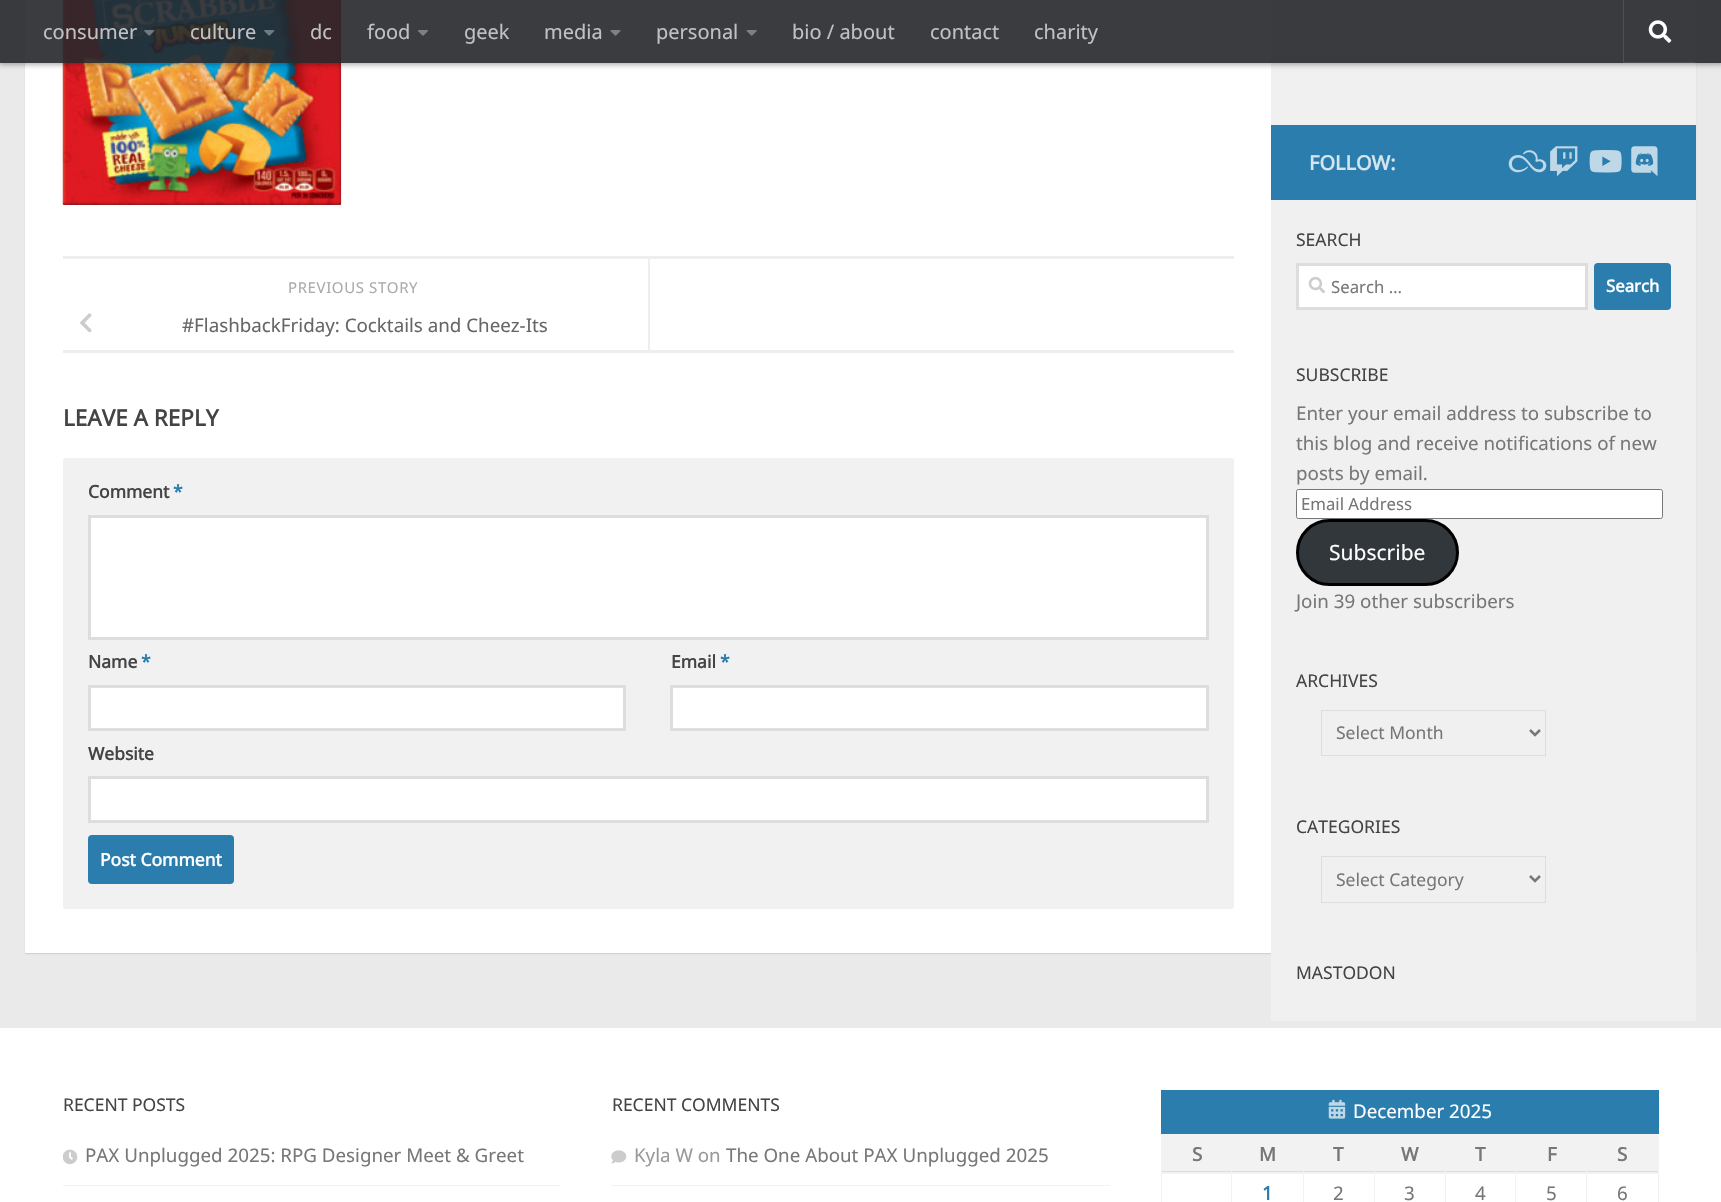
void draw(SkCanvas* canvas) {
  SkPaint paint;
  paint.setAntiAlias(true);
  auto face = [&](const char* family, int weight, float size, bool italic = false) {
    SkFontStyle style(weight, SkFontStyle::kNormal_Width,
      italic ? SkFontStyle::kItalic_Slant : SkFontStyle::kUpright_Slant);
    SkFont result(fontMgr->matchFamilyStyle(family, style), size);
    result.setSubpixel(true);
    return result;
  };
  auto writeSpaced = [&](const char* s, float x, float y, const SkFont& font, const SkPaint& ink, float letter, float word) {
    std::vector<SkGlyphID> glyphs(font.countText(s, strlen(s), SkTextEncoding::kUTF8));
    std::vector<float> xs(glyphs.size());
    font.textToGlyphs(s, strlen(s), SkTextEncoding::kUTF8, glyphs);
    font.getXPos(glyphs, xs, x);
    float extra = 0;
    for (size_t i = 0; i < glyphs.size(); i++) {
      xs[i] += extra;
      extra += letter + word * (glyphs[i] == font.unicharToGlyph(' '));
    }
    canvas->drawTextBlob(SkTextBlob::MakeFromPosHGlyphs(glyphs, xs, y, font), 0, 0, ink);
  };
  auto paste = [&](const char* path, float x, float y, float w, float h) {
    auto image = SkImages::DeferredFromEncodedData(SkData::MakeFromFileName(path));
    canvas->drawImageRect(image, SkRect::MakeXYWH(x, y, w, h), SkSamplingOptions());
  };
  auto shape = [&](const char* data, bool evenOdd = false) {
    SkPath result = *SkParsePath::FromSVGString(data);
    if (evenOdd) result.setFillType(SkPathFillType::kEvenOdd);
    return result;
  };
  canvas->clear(0xffeaeaea);
  paint.setColor(0x1a000000);
  paint.setMaskFilter(SkMaskFilter::MakeBlur(kNormal_SkBlurStyle, 0.5f));
  canvas->drawRect(SkRect::MakeXYWH(25, -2, 1671, 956), paint);
  paint.setMaskFilter(nullptr);
  paint.setColor(0xffffffff);
  canvas->drawRect(SkRect::MakeXYWH(25, 0, 1246, 953), paint);
  paint.setColor(0xfff0f0f0);
  canvas->drawRect(SkRect::MakeXYWH(1271, 0, 425, 125), paint);
  paste("img/7.png", 62, 0, 280, 205);
  canvas->save();
  canvas->clipPath(shape("M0 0H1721V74H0ZM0 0H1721V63H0Z", true), true);
  paint.setColor(0x4d000000);
  paint.setMaskFilter(SkMaskFilter::MakeBlur(kNormal_SkBlurStyle, 2.5f));
  canvas->drawRect(SkRect::MakeXYWH(-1, 0, 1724, 65), paint);
  paint.setMaskFilter(nullptr);
  canvas->restore();
  paint.setColor(0xe626272b);
  canvas->drawRect(SkRect::MakeXYWH(0, 0, 1721, 63), paint);
  paste("img/1.png", 144, 30, 11, 6);
  paste("img/2.png", 264, 30, 11, 6);
  paste("img/3.png", 418, 30, 10, 6);
  paste("img/4.png", 610, 30, 11, 6);
  paste("img/5.png", 746, 30, 11, 6);
  paint.setColor(0x1affffff);
  canvas->drawPath(shape("M1623 0V63H1695V62H1624V0Z"), paint);
  paste("img/6.png", 1648, 20, 24, 23);
  {
    const struct { float x, y, w, h; SkColor color; } items[] = {
      {63, 256, 1171, 3, 0xffeeeeee},
      {63, 350, 1171, 3, 0xffeeeeee},
      {648, 259, 2, 91, 0xffeeeeee},
    };
    for (auto [x, y, w, h, color] : items) {
      paint.setColor(color);
      canvas->drawRect(SkRect::MakeXYWH(x, y, w, h), paint);
    }
  }
  paste("img/8.png", 80, 313, 12, 20);
  paint.setColor(0xfff1f1f1);
  canvas->drawRoundRect(SkRect::MakeXYWH(63, 458, 1171, 451), 2.5f, 2.5f, paint);
  paint.setColor(0xffffffff);
  canvas->drawRect(SkRect::MakeXYWH(89.5f, 516.5f, 1118, 122), paint);
  paint.setStroke(true);
  paint.setStrokeWidth(3);
  paint.setColor(0xffdddddd);
  canvas->drawRect(SkRect::MakeXYWH(89.5f, 516.5f, 1118, 122), paint);
  paint.setStroke(false);
  paint.setColor(0xffffffff);
  canvas->drawRect(SkRect::MakeXYWH(89.5f, 686.5f, 535, 43), paint);
  paint.setStroke(true);
  paint.setColor(0xffdddddd);
  canvas->drawRect(SkRect::MakeXYWH(89.5f, 686.5f, 535, 43), paint);
  paint.setStroke(false);
  paint.setColor(0xffffffff);
  canvas->drawRect(SkRect::MakeXYWH(671.5f, 686.5f, 536, 43), paint);
  paint.setStroke(true);
  paint.setColor(0xffdddddd);
  canvas->drawRect(SkRect::MakeXYWH(671.5f, 686.5f, 536, 43), paint);
  paint.setStroke(false);
  paint.setColor(0xffffffff);
  canvas->drawRect(SkRect::MakeXYWH(89.5f, 777.5f, 1118, 44), paint);
  paint.setStroke(true);
  paint.setColor(0xffdddddd);
  canvas->drawRect(SkRect::MakeXYWH(89.5f, 777.5f, 1118, 44), paint);
  paint.setStroke(false);
  paint.setColor(0xff2b7dad);
  canvas->drawRoundRect(SkRect::MakeXYWH(88, 835, 146, 49), 4, 4, paint);
  paint.setColor(0xfff0f0f0);
  canvas->drawRect(SkRect::MakeXYWH(1271, 200, 425, 821), paint);
  paint.setColor(0xff2b7dad);
  canvas->drawRect(SkRect::MakeXYWH(1271, 125, 425, 75), paint);
  paste("img/9.png", 1508, 150, 39, 23);
  paste("img/10.png", 1550, 146, 28, 30);
  paste("img/11.png", 1589, 150, 33, 23);
  paste("img/12.png", 1631, 146, 27, 31);
  paint.setColor(0xffffffff);
  canvas->drawRect(SkRect::MakeXYWH(1297.5f, 264.5f, 289, 44), paint);
  paint.setStroke(true);
  paint.setColor(0xffdddddd);
  canvas->drawRect(SkRect::MakeXYWH(1297.5f, 264.5f, 289, 44), paint);
  paste("img/13.png", 1308, 277, 17, 17);
  paint.setStroke(false);
  paint.setColor(0xff2b7dad);
  canvas->drawRoundRect(SkRect::MakeXYWH(1594, 263, 77, 47), 4, 4, paint);
  paint.setColor(0xffffffff);
  canvas->drawRoundRect(SkRect::MakeXYWH(1296.5f, 489.5f, 366, 29), 2, 2, paint);
  paint.setStroke(true);
  paint.setStrokeWidth(1);
  paint.setColor(0xff767676);
  canvas->drawRoundRect(SkRect::MakeXYWH(1296.5f, 489.5f, 366, 29), 2, 2, paint);
  paint.setStroke(false);
  paint.setColor(0xff32373c);
  canvas->drawRoundRect(SkRect::MakeXYWH(1297.5f, 520.5f, 160, 64), 32, 32, paint);
  paint.setStroke(true);
  paint.setStrokeWidth(3);
  paint.setColor(0xff000000);
  canvas->drawRoundRect(SkRect::MakeXYWH(1297.5f, 520.5f, 160, 64), 32, 32, paint);
  paint.setStrokeWidth(1);
  paint.setColor(0xffdddddd);
  canvas->drawRect(SkRect::MakeXYWH(1321.5f, 710.5f, 224, 45), paint);
  paint.setStrokeWidth(2.5f);
  paint.setColor(0xff777777);
  canvas->drawPath(shape("M1530 730L1535 735L1540 730"), paint);
  paint.setStrokeWidth(1);
  paint.setColor(0xffdddddd);
  canvas->drawRect(SkRect::MakeXYWH(1321.5f, 856.5f, 224, 46), paint);
  paint.setStrokeWidth(2.5f);
  paint.setColor(0xff777777);
  canvas->drawPath(shape("M1530 876L1535 881L1540 876"), paint);
  paint.setStroke(false);
  paint.setColor(0xffffffff);
  canvas->drawRect(SkRect::MakeXYWH(0, 1028, 1721, 174), paint);
  paint.setColor(0xfff2f2f2);
  canvas->drawRect(SkRect::MakeXYWH(63, 1185, 497, 1), paint);
  paste("img/14.png", 63, 1149, 15, 16);
  canvas->drawRect(SkRect::MakeXYWH(611, 1185, 499, 1), paint);
  paste("img/15.png", 611, 1150, 16, 14);
  paint.setColor(0xff2b7dad);
  canvas->drawRect(SkRect::MakeXYWH(1161, 1090, 498, 44), paint);
  paste("img/16.png", 1328, 1099, 18, 20);
  {
    const struct { float x, y, w, h; SkColor color; } items[] = {
      {1162, 1134, 496, 39, 0xfff2f2f2},
      {1161, 1171, 497, 1, 0xffdddddd},
      {1586, 1173, 73, 1, 0xfff2f2f2},
      {1586, 1173, 1, 29, 0xfff2f2f2},
      {1515, 1173, 73, 1, 0xfff2f2f2},
      {1515, 1173, 1, 29, 0xfff2f2f2},
      {1445, 1173, 71, 1, 0xfff2f2f2},
      {1445, 1173, 1, 29, 0xfff2f2f2},
      {1374, 1173, 72, 1, 0xfff2f2f2},
      {1374, 1173, 1, 29, 0xfff2f2f2},
      {1303, 1173, 72, 1, 0xfff2f2f2},
      {1303, 1173, 1, 29, 0xfff2f2f2},
      {1231, 1173, 73, 1, 0xfff2f2f2},
      {1231, 1173, 1, 29, 0xfff2f2f2},
      {1161, 1173, 72, 1, 0xfff2f2f2},
      {1231, 1171, 1, 3, 0xfff2f2f2},
      {1303, 1171, 1, 3, 0xfff2f2f2},
      {1374, 1171, 1, 3, 0xfff2f2f2},
      {1445, 1171, 1, 3, 0xfff2f2f2},
      {1515, 1171, 1, 3, 0xfff2f2f2},
      {1658, 1173, 1, 29, 0xfff2f2f2},
      {1658, 1134, 1, 40, 0xfff2f2f2},
      {1586, 1171, 1, 3, 0xfff2f2f2},
      {1161, 1134, 1, 68, 0xfff2f2f2},
    };
    for (auto [x, y, w, h, color] : items) {
      paint.setColor(color);
      canvas->drawRect(SkRect::MakeXYWH(x, y, w, h), paint);
    }
  }
  auto f0 = face("Noto Sans", 400, 20);
  paint.setColor(0xffc1c1c3);
  {
    const struct { const char* s; float x, y; } items[] = {
      {"consumer", 43, 39},
      {"culture", 190, 39},
      {"dc", 310, 39},
      {"food", 367, 39},
      {"geek", 464, 39},
      {"media", 544, 39},
      {"personal", 656, 39},
      {"bio / about", 792, 39},
      {"contact", 930, 39},
      {"charity", 1034, 39},
    };
    for (auto [s, x, y] : items) {
      canvas->drawString(s, x, y, f0, paint);
    }
  }
  auto f1 = face("Noto Sans", 400, 15);
  paint.setColor(0xffaaaaaa);
  writeSpaced("PREVIOUS STORY", 288, 293, f1, paint, 0.6f, 0);
  auto f2 = face("Noto Sans", 400, 18.75f);
  paint.setColor(0xff666666);
  canvas->drawString("#FlashbackFriday: Cocktails and Cheez-Its", 182, 332, f2, paint);
  auto f3 = face("Noto Sans", 700, 22.5f);
  paint.setColor(0xff444444);
  canvas->drawString("LEAVE A REPLY", 63, 426, f3, paint);
  auto f4 = face("Noto Sans", 700, 17.5f);
  canvas->drawString("Comment", 88, 498, f4, paint);
  paint.setColor(0xff2b7dad);
  canvas->drawString("*", 173, 498, f4, paint);
  paint.setColor(0xff444444);
  canvas->drawString("Name", 88, 668, f4, paint);
  paint.setColor(0xff2b7dad);
  canvas->drawString("*", 141, 668, f4, paint);
  paint.setColor(0xff444444);
  canvas->drawString("Email", 671, 668, f4, paint);
  paint.setColor(0xff2b7dad);
  canvas->drawString("*", 720, 668, f4, paint);
  paint.setColor(0xff444444);
  canvas->drawString("Website", 88, 760, f4, paint);
  paint.setColor(0xffffffff);
  canvas->drawString("Post Comment", 100, 866, f4, paint);
  auto f5 = face("Noto Sans", 700, 20);
  paint.setColor(0xffd5e5ef);
  canvas->drawString("FOLLOW:", 1309, 170, f5, paint);
  auto f6 = face("Noto Sans", 400, 17.5f);
  paint.setColor(0xff444444);
  canvas->drawString("SEARCH", 1296, 246, f6, paint);
  auto f7 = face("Noto Sans", 400, 16.75f);
  paint.setColor(0xff777777);
  canvas->drawString("Search …", 1331, 293, f7, paint);
  auto f8 = face("Noto Sans", 700, 16.75f);
  paint.setColor(0xffffffff);
  canvas->drawString("Search", 1606, 292, f8, paint);
  paint.setColor(0xff444444);
  canvas->drawString("SUBSCRIBE", 1296, 381, f6, paint);
  paint.setColor(0xff777777);
  {
    const struct { const char* s; float x, y; } items[] = {
      {"Enter your email address to subscribe to", 1296, 420},
      {"this blog and receive notifications of new", 1296, 450},
      {"posts by email.", 1296, 480},
    };
    for (auto [s, x, y] : items) {
      canvas->drawString(s, x, y, f2, paint);
    }
  }
  canvas->drawString("Email Address", 1301, 510, f7, paint);
  auto f9 = face("Noto Sans", 400, 21);
  paint.setColor(0xffffffff);
  canvas->drawString("Subscribe", 1329, 560, f9, paint);
  paint.setColor(0xff777777);
  canvas->drawString("Join 39 other subscribers", 1296, 608, f2, paint);
  paint.setColor(0xff444444);
  canvas->drawString("ARCHIVES", 1296, 687, f6, paint);
  paint.setColor(0xff777777);
  canvas->drawString("Select Month", 1336, 739, f6, paint);
  paint.setColor(0xff444444);
  canvas->drawString("CATEGORIES", 1296, 833, f6, paint);
  paint.setColor(0xff777777);
  canvas->drawString("Select Category", 1336, 886, f6, paint);
  paint.setColor(0xff444444);
  canvas->drawString("MASTODON", 1296, 979, f6, paint);
  canvas->drawString("RECENT POSTS", 63, 1111, f6, paint);
  paint.setColor(0xff777777);
  canvas->drawString("PAX Unplugged 2025: RPG Designer Meet & Greet", 85, 1162, f2, paint);
  paint.setColor(0xff444444);
  canvas->drawString("RECENT COMMENTS", 612, 1111, f6, paint);
  paint.setColor(0xff999999);
  canvas->drawString("Kyla W on", 634, 1162, f2, paint);
  paint.setColor(0xff777777);
  canvas->drawString("The One About PAX Unplugged 2025", 726, 1162, f2, paint);
  paint.setColor(0xffffffff);
  canvas->drawString("December 2025", 1353, 1118, f2, paint);
  auto f10 = face("Noto Sans", 700, 18.75f);
  paint.setColor(0xff777777);
  {
    const struct { const char* s; float x, y; } items[] = {
      {"S", 1192, 1161},
      {"M", 1259, 1161},
      {"T", 1333, 1161},
      {"W", 1401, 1161},
      {"T", 1475, 1161},
      {"F", 1547, 1161},
      {"S", 1617, 1161},
    };
    for (auto [s, x, y] : items) {
      canvas->drawString(s, x, y, f10, paint);
    }
  }
  paint.setColor(0xff2b7dad);
  canvas->drawString("1", 1262, 1200, f10, paint);
  paint.setColor(0xff777777);
  {
    const struct { const char* s; float x, y; } items[] = {
      {"2", 1333, 1200},
      {"3", 1404, 1200},
      {"4", 1475, 1200},
      {"5", 1546, 1200},
      {"6", 1617, 1200},
    };
    for (auto [s, x, y] : items) {
      canvas->drawString(s, x, y, f2, paint);
    }
  }
}
